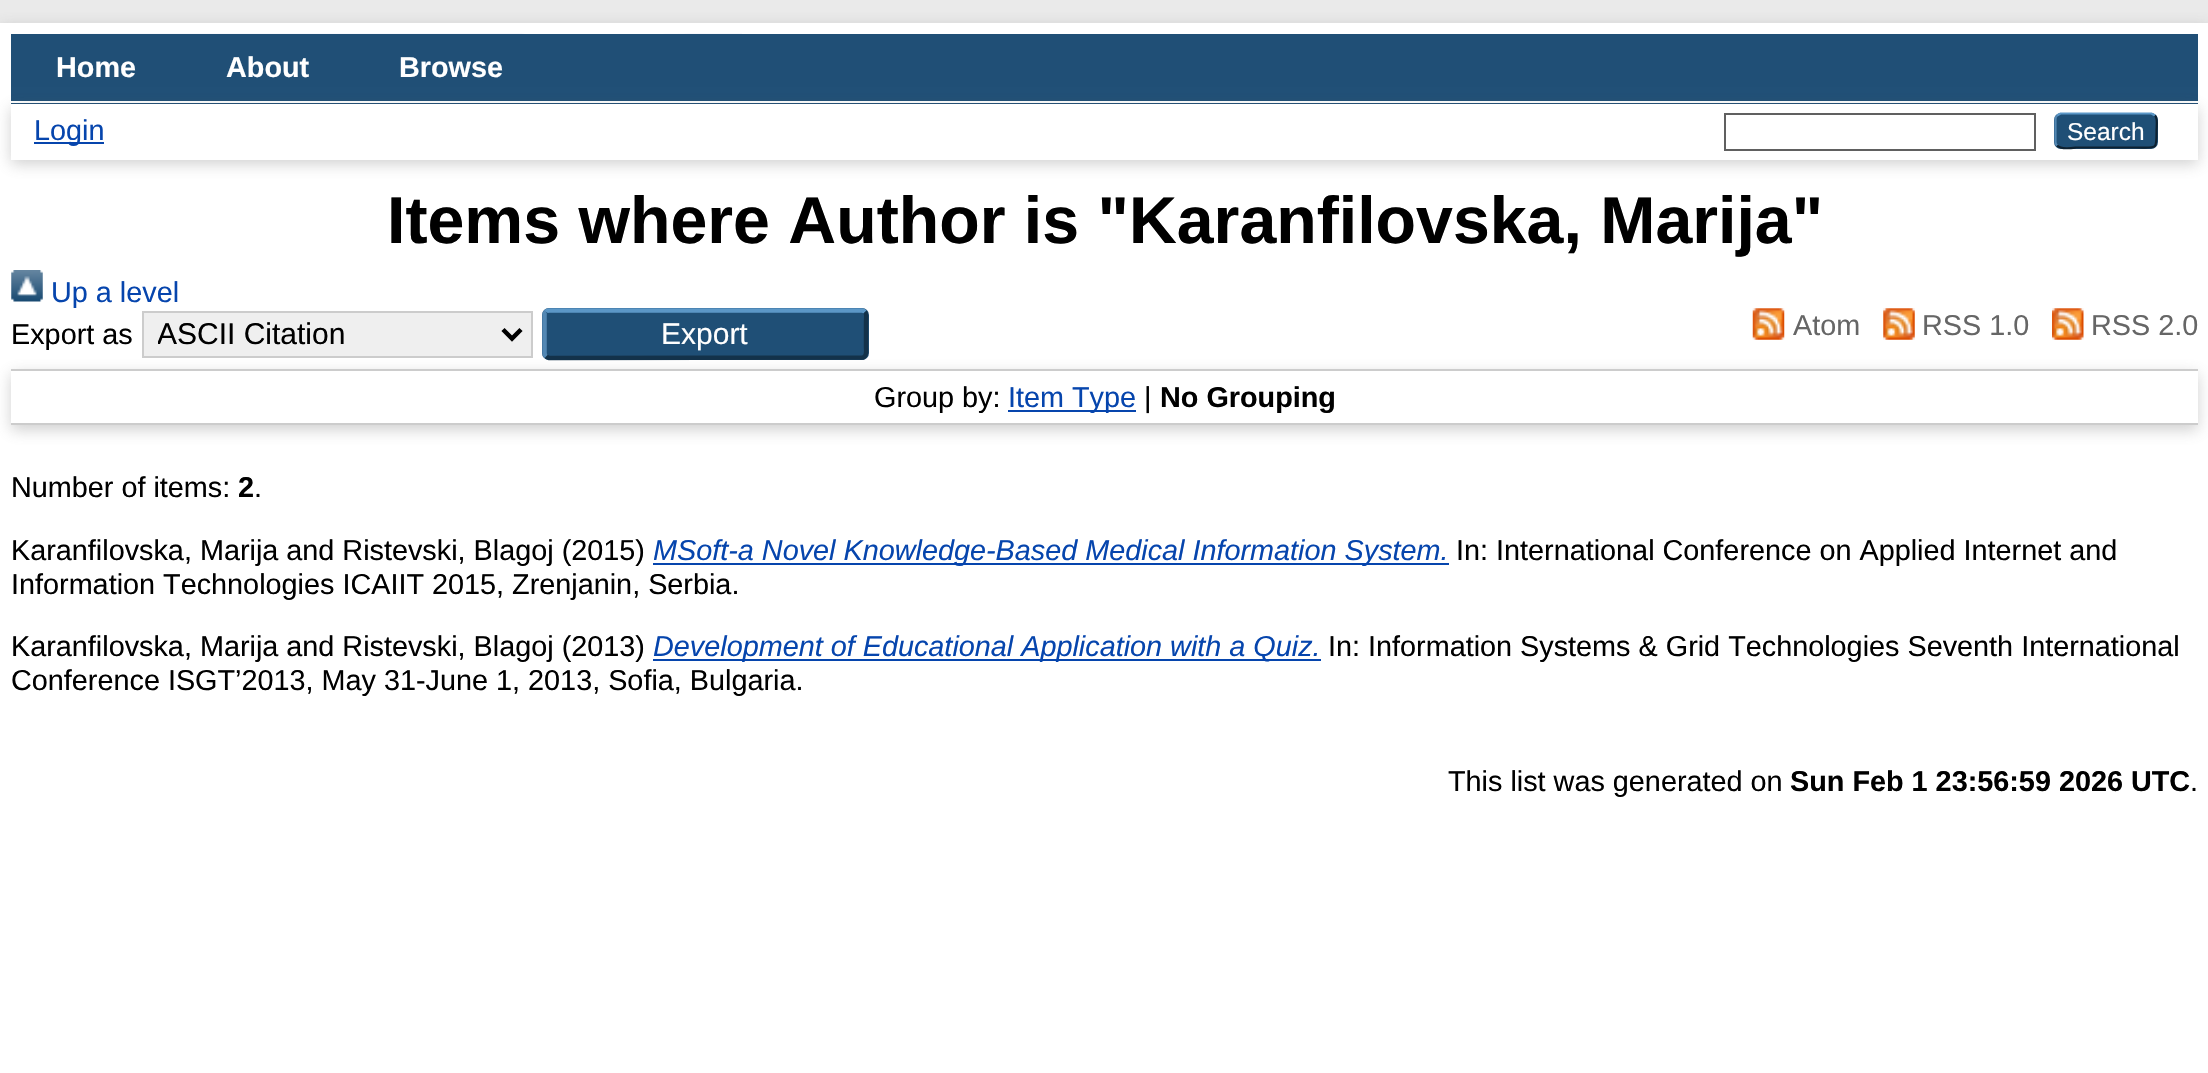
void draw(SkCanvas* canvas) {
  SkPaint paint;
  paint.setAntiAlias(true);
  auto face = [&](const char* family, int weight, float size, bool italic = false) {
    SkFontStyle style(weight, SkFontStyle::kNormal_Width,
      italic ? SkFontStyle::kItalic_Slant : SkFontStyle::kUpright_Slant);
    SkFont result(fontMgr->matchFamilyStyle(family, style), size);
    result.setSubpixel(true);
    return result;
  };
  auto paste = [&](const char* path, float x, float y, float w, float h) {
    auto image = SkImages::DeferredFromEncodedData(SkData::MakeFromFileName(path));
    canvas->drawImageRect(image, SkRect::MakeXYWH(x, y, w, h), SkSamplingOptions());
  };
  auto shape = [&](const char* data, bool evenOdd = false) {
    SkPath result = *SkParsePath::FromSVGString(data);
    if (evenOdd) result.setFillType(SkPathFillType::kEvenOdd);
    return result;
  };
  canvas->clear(0xffeaeaea);
  paint.setColor(0x4d646464);
  paint.setMaskFilter(SkMaskFilter::MakeBlur(kNormal_SkBlurStyle, 7));
  canvas->drawRect(SkRect::MakeXYWH(0, 27, 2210, 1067), paint);
  paint.setMaskFilter(nullptr);
  paint.setColor(0xffffffff);
  canvas->drawRect(SkRect::MakeXYWH(0, 23, 2208, 1050), paint);
  paste("img/1.png", 60, 33, 682, 1);
  paint.setColor(0xff204f76);
  canvas->drawRect(SkRect::MakeXYWH(11, 34, 2187, 70), paint);
  paint.setColor(0xffffffff);
  canvas->drawRect(SkRect::MakeXYWH(11, 101, 2187, 2), paint);
  paint.setColor(0x4d646464);
  paint.setMaskFilter(SkMaskFilter::MakeBlur(kNormal_SkBlurStyle, 7));
  canvas->drawRect(SkRect::MakeXYWH(11, 108, 2187, 56), paint);
  paint.setMaskFilter(nullptr);
  paint.setColor(0xffffffff);
  canvas->drawRect(SkRect::MakeXYWH(11, 104, 2187, 56), paint);
  paint.setColor(0xff0645ad);
  canvas->drawRect(SkRect::MakeXYWH(34, 142, 70, 2), paint);
  paint.setStroke(true);
  paint.setStrokeWidth(2);
  paint.setColor(0xff606060);
  canvas->drawRect(SkRect::MakeXYWH(1725, 114, 310, 36), paint);
  paint.setStroke(false);
  paint.setColor(0xff1f4f76);
  canvas->drawRoundRect(SkRect::MakeXYWH(2054, 113, 104, 36), 7, 7, paint);
  paint.setStroke(true);
  paint.setStrokeWidth(2.2f);
  paint.setColor(0xff5b97c7);
  canvas->drawPath(shape("M2057 115.5L2060.5 113.5H2151.5L2155 115.5"), paint);
  paint.setColor(0xff0d2131);
  canvas->drawPath(shape("M2155 115.5C2158 118.5 2156.5 126.5 2156.5 130.5C2156.5 150.5 2157.5 147.5 2136 147.5H2076C2075.5 147.5 2061 150 2057 145.5"), paint);
  paint.setColor(0xff5287b3);
  canvas->drawPath(shape("M2057 145.5C2056 144.5 2055.5 143 2055.5 142V119C2055.5 118 2056 116.5 2057 115.5"), paint);
  paste("img/2.png", 11, 270, 32, 32);
  paint.setStroke(false);
  paint.setColor(0x4d646464);
  paint.setMaskFilter(SkMaskFilter::MakeBlur(kNormal_SkBlurStyle, 7));
  canvas->drawRect(SkRect::MakeXYWH(11, 374, 2187, 56), paint);
  paint.setMaskFilter(nullptr);
  paint.setColor(0xffefefef);
  canvas->drawRect(SkRect::MakeXYWH(143, 312, 389, 45), paint);
  paint.setStroke(true);
  paint.setStrokeWidth(2);
  paint.setColor(0xffcccccc);
  canvas->drawRect(SkRect::MakeXYWH(143, 312, 389, 45), paint);
  paint.setStrokeWidth(4.5f);
  paint.setColor(0xff000000);
  canvas->drawPath(shape("M503 329.5L512 338.5L521 329.5"), paint);
  paint.setStroke(false);
  paint.setColor(0xff1f4f76);
  canvas->drawRoundRect(SkRect::MakeXYWH(542, 308, 327, 52), 7, 7, paint);
  paint.setStroke(true);
  paint.setColor(0xff5b97c7);
  canvas->drawPath(shape("M546 312C546.5 311 548 310.5 549 310.5H862C863 310.5 864 311 865 312"), paint);
  paint.setColor(0xff13324a);
  canvas->drawPath(shape("M865 312C867 314 866 319 866 321.5V347C866 350 867.5 356 863 357.5L549 358L546 356.5"), paint);
  paint.setColor(0xff5287b3);
  canvas->drawPath(shape("M546 356.5C545 355.5 544.5 354.5 544.5 353V315C544.5 314 545 312.5 546 312"), paint);
  paste("img/3.png", 1752, 308, 33, 32);
  paste("img/4.png", 1883, 308, 32, 32);
  paste("img/5.png", 2052, 308, 32, 32);
  paint.setStroke(false);
  {
    const struct { float x, y, w, h; SkColor color; } items[] = {
      {11, 371, 2187, 52, 0xffffffff},
      {11, 369, 2187, 2, 0xffcccccc},
      {11, 423, 2187, 2, 0xffcccccc},
      {1008, 410, 128, 2, 0xff0645ad},
      {653, 563, 796, 2, 0xff0645ad},
      {653, 659, 668, 2, 0xff0645ad},
    };
    for (auto [x, y, w, h, color] : items) {
      paint.setColor(color);
      canvas->drawRect(SkRect::MakeXYWH(x, y, w, h), paint);
    }
  }
  auto f0 = face("Liberation Sans", 700, 28.8f);
  paint.setColor(0xffffffff);
  {
    const struct { const char* s; float x, y; } items[] = {
      {"Home", 56, 77},
      {"About", 226, 77},
      {"Browse", 399, 77},
    };
    for (auto [s, x, y] : items) {
      canvas->drawString(s, x, y, f0, paint);
    }
  }
  auto f1 = face("Liberation Sans", 400, 28.8f);
  paint.setColor(0xff0645ad);
  canvas->drawString("Login", 34, 140, f1, paint);
  auto f2 = face("Liberation Sans", 400, 24.5f);
  paint.setColor(0xffffffff);
  canvas->drawString("Search", 2067, 140, f2, paint);
  auto f3 = face("Liberation Sans", 700, 66.25f);
  paint.setColor(0xff000000);
  canvas->drawString("Items where Author is \"Karanfilovska, Marija\"", 387, 243, f3, paint);
  paint.setColor(0xff0645ad);
  canvas->drawString("Up a level", 51, 302, f1, paint);
  paint.setColor(0xff000000);
  canvas->drawString("Export as", 11, 344, f1, paint);
  canvas->save();
  canvas->clipRect(SkRect::MakeXYWH(158, 315, 333, 38));
  auto f4 = face("Liberation Sans", 400, 30);
  canvas->drawString("ASCII Citation", 157, 344, f4, paint);
  canvas->restore();
  paint.setColor(0xffffffff);
  canvas->drawString("Export", 661, 344, f4, paint);
  paint.setColor(0xff666666);
  {
    const struct { const char* s; float x, y; } items[] = {
      {"Atom", 1793, 335},
      {"RSS 1.0", 1922, 335},
      {"RSS 2.0", 2091, 335},
    };
    for (auto [s, x, y] : items) {
      canvas->drawString(s, x, y, f1, paint);
    }
  }
  paint.setColor(0xff000000);
  canvas->drawString("Group by:", 874, 407, f1, paint);
  paint.setColor(0xff0645ad);
  canvas->drawString("Item Type", 1008, 407, f1, paint);
  paint.setColor(0xff000000);
  canvas->drawString("|", 1144, 407, f1, paint);
  canvas->drawString("No Grouping", 1160, 407, f0, paint);
  canvas->drawString("Number of items:", 11, 497, f1, paint);
  canvas->drawString("2", 238, 497, f0, paint);
  canvas->drawString(".", 254, 497, f1, paint);
  canvas->drawString("Karanfilovska, Marija and Ristevski, Blagoj (2015)", 11, 560, f1, paint);
  auto f5 = face("Liberation Sans", 400, 28.8f, true);
  paint.setColor(0xff0645ad);
  canvas->drawString("MSoft-a Novel Knowledge-Based Medical Information System.", 653, 560, f5, paint);
  paint.setColor(0xff000000);
  {
    const struct { const char* s; float x, y; } items[] = {
      {"In: International Conference on Applied Internet and", 1456, 560},
      {"Information Technologies ICAIIT 2015, Zrenjanin, Serbia.", 11, 594},
      {"Karanfilovska, Marija and Ristevski, Blagoj (2013)", 11, 656},
    };
    for (auto [s, x, y] : items) {
      canvas->drawString(s, x, y, f1, paint);
    }
  }
  paint.setColor(0xff0645ad);
  canvas->drawString("Development of Educational Application with a Quiz.", 653, 656, f5, paint);
  paint.setColor(0xff000000);
  {
    const struct { const char* s; float x, y; } items[] = {
      {"In: Information Systems & Grid Technologies Seventh International", 1328, 656},
      {"Conference ISGT’2013, May 31-June 1, 2013, Sofia, Bulgaria.", 11, 690},
      {"This list was generated on", 1448, 791},
    };
    for (auto [s, x, y] : items) {
      canvas->drawString(s, x, y, f1, paint);
    }
  }
  canvas->drawString("Sun Feb 1 23:56:59 2026 UTC", 1790, 791, f0, paint);
  canvas->drawString(".", 2190, 791, f1, paint);
}
